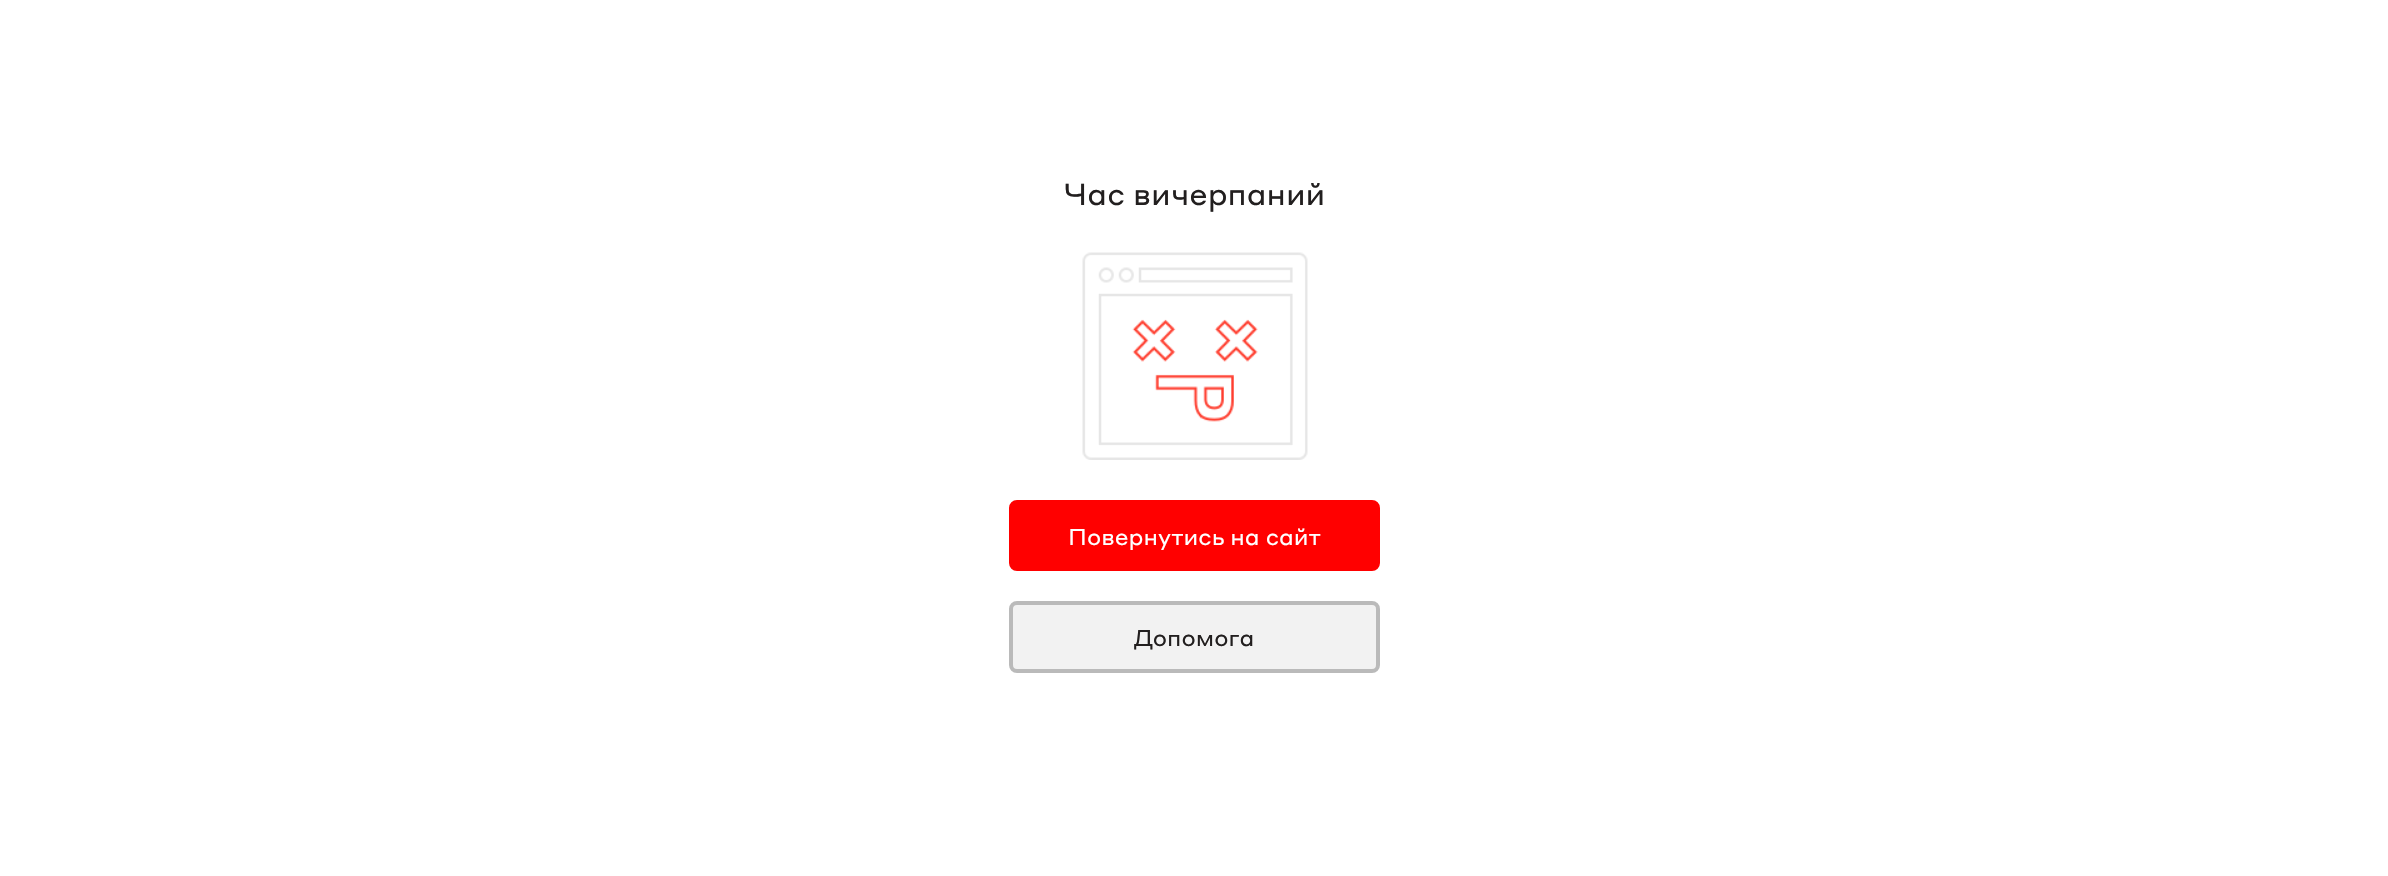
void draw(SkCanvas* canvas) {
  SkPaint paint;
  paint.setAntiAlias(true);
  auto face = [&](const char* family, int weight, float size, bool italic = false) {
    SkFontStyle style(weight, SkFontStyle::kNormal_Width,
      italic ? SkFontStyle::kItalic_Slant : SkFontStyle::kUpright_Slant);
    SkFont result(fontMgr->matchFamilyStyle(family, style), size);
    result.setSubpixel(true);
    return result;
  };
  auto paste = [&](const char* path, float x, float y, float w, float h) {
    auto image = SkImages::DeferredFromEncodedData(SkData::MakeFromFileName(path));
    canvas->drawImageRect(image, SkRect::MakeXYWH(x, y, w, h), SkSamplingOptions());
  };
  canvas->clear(0xffffffff);
  paste("img/1.png", 1082, 252, 226, 208);
  paint.setColor(0xffff0000);
  canvas->drawRoundRect(SkRect::MakeXYWH(1011, 502, 367, 67), 6, 6, paint);
  paint.setStroke(true);
  paint.setStrokeWidth(4);
  canvas->drawRoundRect(SkRect::MakeXYWH(1011, 502, 367, 67), 6, 6, paint);
  paint.setStroke(false);
  paint.setColor(0xfff2f2f2);
  canvas->drawRoundRect(SkRect::MakeXYWH(1009, 601, 371, 72), 8, 8, paint);
  paint.setStroke(true);
  paint.setColor(0x3b000000);
  canvas->drawRoundRect(SkRect::MakeXYWH(1011, 603, 367, 68), 6, 6, paint);
  auto f0 = face("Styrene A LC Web", 400, 30);
  paint.setStroke(false);
  paint.setColor(0xff221f1f);
  canvas->drawString("Час вичерпаний", 1063, 205, f0, paint);
  auto f1 = face("Styrene A LC Web", 400, 22.5f);
  paint.setColor(0xffffffff);
  canvas->drawString("Повернутись на сайт", 1068, 545, f1, paint);
  paint.setColor(0xff221f1f);
  canvas->drawString("Допомога", 1134, 646, f1, paint);
}
